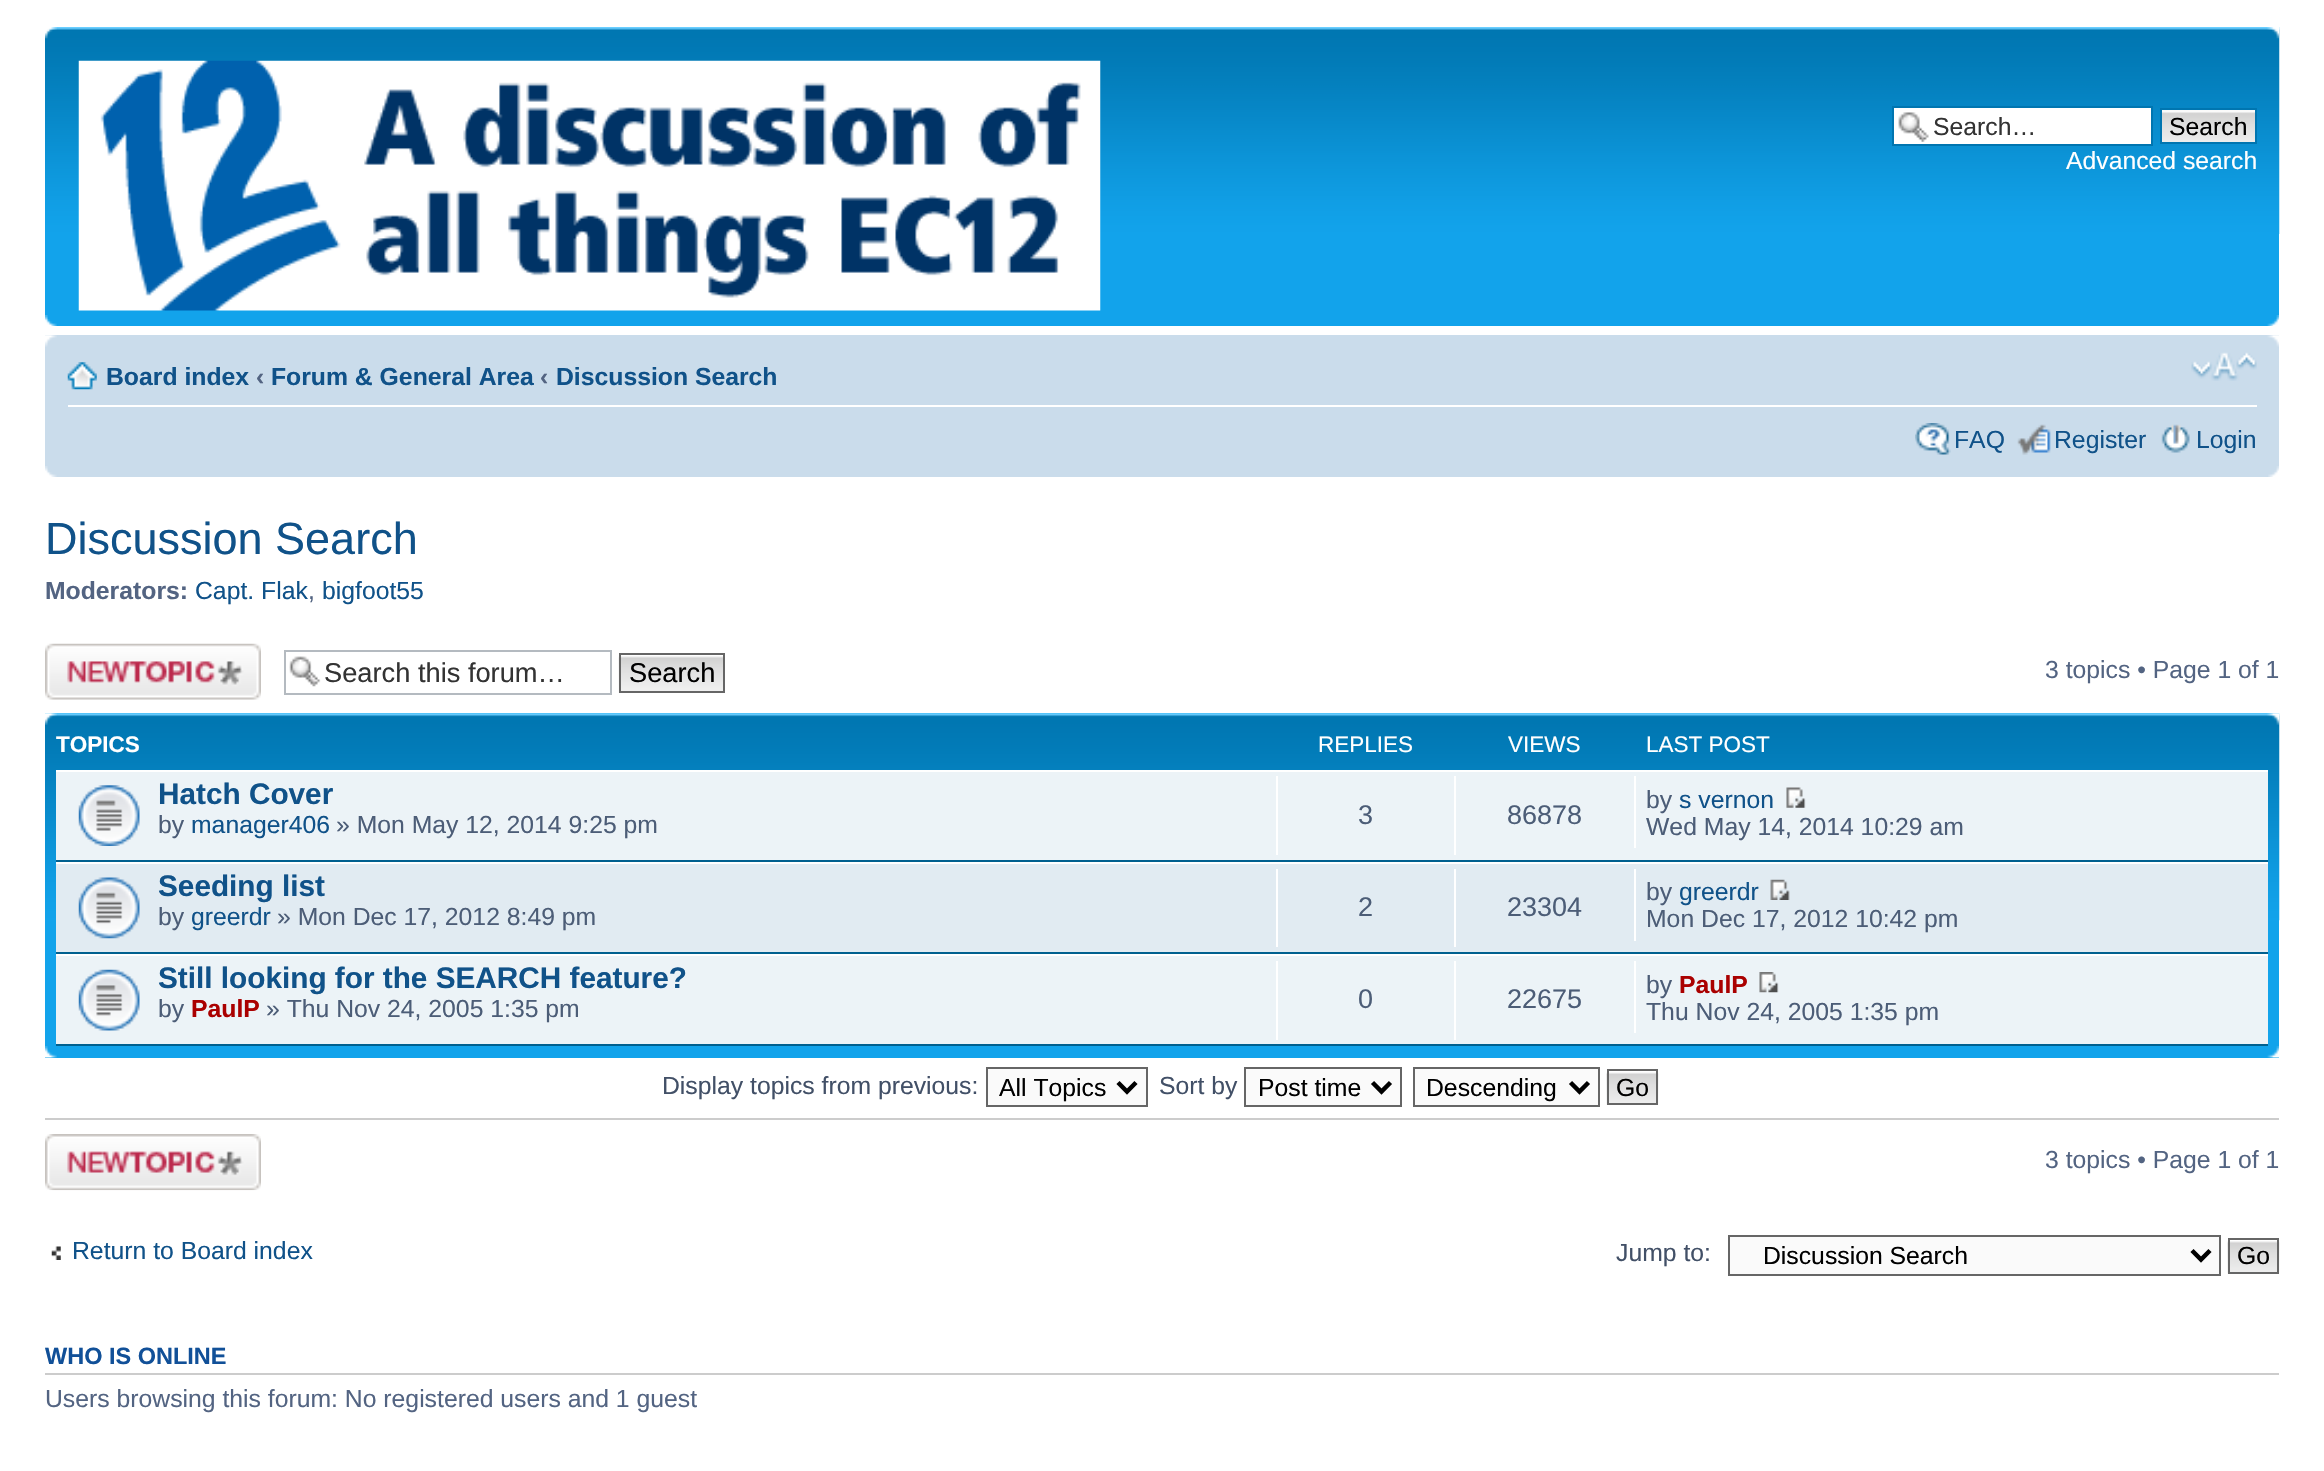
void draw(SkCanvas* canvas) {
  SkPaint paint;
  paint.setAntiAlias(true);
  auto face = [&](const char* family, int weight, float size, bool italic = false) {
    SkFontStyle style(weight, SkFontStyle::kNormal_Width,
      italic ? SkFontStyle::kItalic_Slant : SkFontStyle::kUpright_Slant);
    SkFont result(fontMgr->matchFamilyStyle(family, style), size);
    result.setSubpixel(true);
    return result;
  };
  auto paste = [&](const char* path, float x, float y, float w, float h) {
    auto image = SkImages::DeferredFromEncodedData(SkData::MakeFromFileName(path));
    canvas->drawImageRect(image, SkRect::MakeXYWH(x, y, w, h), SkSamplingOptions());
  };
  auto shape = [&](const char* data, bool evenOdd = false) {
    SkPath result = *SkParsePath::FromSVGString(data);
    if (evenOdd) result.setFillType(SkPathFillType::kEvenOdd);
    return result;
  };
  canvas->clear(0xffffffff);
  paint.setColor(0xff12a3eb);
  canvas->drawRect(SkRect::MakeXYWH(45, 234, 2234, 92), paint);
  paste("img/1.png", 45, 27, 2235, 207);
  paste("img/2.png", 45, 27, 12, 12);
  paste("img/3.png", 2267, 27, 13, 12);
  paste("img/4.png", 78, 60, 1023, 251);
  paint.setColor(0xffffffff);
  canvas->drawRect(SkRect::MakeXYWH(1894, 108, 257, 36), paint);
  paste("img/5.png", 1898, 112, 31, 30);
  paint.setStroke(true);
  paint.setStrokeWidth(2);
  paint.setColor(0xff0075b0);
  canvas->drawRect(SkRect::MakeXYWH(1893, 107, 259, 38), paint);
  paint.setStroke(false);
  paint.setColor(0xfffafafa);
  canvas->drawRect(SkRect::MakeXYWH(2162, 110, 93, 2), paint);
  paste("img/6.png", 2162, 112, 93, 30);
  paint.setStroke(true);
  paint.setColor(0xff0075b0);
  canvas->drawRect(SkRect::MakeXYWH(2161, 109, 95, 34), paint);
  paste("img/7.png", 45, 315, 12, 11);
  paste("img/8.png", 2267, 315, 12, 11);
  paint.setStroke(false);
  paint.setColor(0xffcadceb);
  canvas->drawRect(SkRect::MakeXYWH(45, 335, 2234, 142), paint);
  paste("img/9.png", 45, 335, 12, 12);
  paste("img/10.png", 2267, 335, 12, 12);
  paint.setColor(0xffffffff);
  canvas->drawRect(SkRect::MakeXYWH(68, 405, 2189, 2), paint);
  paste("img/11.png", 67, 362, 30, 28);
  paste("img/12.png", 2191, 352, 66, 29);
  paste("img/13.png", 1915, 423, 36, 32);
  paste("img/14.png", 2017, 424, 34, 31);
  paste("img/15.png", 2161, 424, 29, 29);
  paste("img/16.png", 45, 466, 12, 11);
  paste("img/17.png", 2268, 466, 11, 11);
  paste("img/18.png", 45, 643, 216, 57);
  paste("img/19.png", 289, 656, 32, 31);
  paint.setStroke(true);
  paint.setColor(0xffb4bac0);
  canvas->drawRect(SkRect::MakeXYWH(285, 651, 326, 43), paint);
  paste("img/20.png", 618, 655, 105, 38);
  paint.setColor(0xff666666);
  canvas->drawRect(SkRect::MakeXYWH(620, 654, 104, 38), paint);
  paint.setStroke(false);
  paint.setColor(0xff12a3eb);
  canvas->drawRect(SkRect::MakeXYWH(45, 713, 2234, 345), paint);
  paste("img/21.png", 45, 713, 2235, 208);
  paste("img/22.png", 45, 713, 12, 12);
  paste("img/23.png", 2267, 713, 13, 12);
  {
    const struct { float x, y, w, h; SkColor color; } items[] = {
      {56, 772, 2212, 88, 0xffecf3f7},
      {56, 770, 2212, 2, 0xffffffff},
      {56, 860, 2212, 2, 0xff00608f},
    };
    for (auto [x, y, w, h, color] : items) {
      paint.setColor(color);
      canvas->drawRect(SkRect::MakeXYWH(x, y, w, h), paint);
    }
  }
  paste("img/24.png", 78, 785, 62, 61);
  {
    const struct { float x, y, w, h; SkColor color; } items[] = {
      {1276, 776, 2, 79, 0xffffffff},
      {1454, 776, 2, 79, 0xffffffff},
      {1634, 776, 2, 72, 0xffffffff},
    };
    for (auto [x, y, w, h, color] : items) {
      paint.setColor(color);
      canvas->drawRect(SkRect::MakeXYWH(x, y, w, h), paint);
    }
  }
  paste("img/25.png", 1786, 787, 20, 21);
  {
    const struct { float x, y, w, h; SkColor color; } items[] = {
      {56, 864, 2212, 88, 0xffe1ebf2},
      {56, 862, 2212, 2, 0xffffffff},
      {56, 952, 2212, 2, 0xff00608f},
    };
    for (auto [x, y, w, h, color] : items) {
      paint.setColor(color);
      canvas->drawRect(SkRect::MakeXYWH(x, y, w, h), paint);
    }
  }
  paste("img/26.png", 78, 877, 62, 62);
  {
    const struct { float x, y, w, h; SkColor color; } items[] = {
      {1276, 869, 2, 78, 0xffffffff},
      {1454, 869, 2, 78, 0xffffffff},
      {1634, 869, 2, 72, 0xffffffff},
    };
    for (auto [x, y, w, h, color] : items) {
      paint.setColor(color);
      canvas->drawRect(SkRect::MakeXYWH(x, y, w, h), paint);
    }
  }
  paste("img/27.png", 1770, 879, 20, 21);
  {
    const struct { float x, y, w, h; SkColor color; } items[] = {
      {56, 956, 2212, 88, 0xffecf3f7},
      {56, 954, 2212, 2, 0xffffffff},
      {56, 1044, 2212, 2, 0xff00608f},
    };
    for (auto [x, y, w, h, color] : items) {
      paint.setColor(color);
      canvas->drawRect(SkRect::MakeXYWH(x, y, w, h), paint);
    }
  }
  paste("img/28.png", 78, 969, 62, 62);
  {
    const struct { float x, y, w, h; SkColor color; } items[] = {
      {1276, 961, 2, 79, 0xffffffff},
      {1454, 961, 2, 79, 0xffffffff},
      {1634, 961, 2, 72, 0xffffffff},
    };
    for (auto [x, y, w, h, color] : items) {
      paint.setColor(color);
      canvas->drawRect(SkRect::MakeXYWH(x, y, w, h), paint);
    }
  }
  paste("img/29.png", 1759, 972, 20, 21);
  paste("img/30.png", 45, 1046, 12, 12);
  paste("img/31.png", 2267, 1046, 12, 12);
  paint.setColor(0xfffafafa);
  canvas->drawRect(SkRect::MakeXYWH(987, 1068, 160, 38), paint);
  paint.setStroke(true);
  paint.setColor(0xff666666);
  canvas->drawRect(SkRect::MakeXYWH(987, 1068, 160, 38), paint);
  paint.setStrokeWidth(4.5f);
  paint.setColor(0xff000000);
  canvas->drawPath(shape("M1118 1082.5L1127 1091.5L1136 1082.5"), paint);
  paint.setStroke(false);
  paint.setColor(0xfffafafa);
  canvas->drawRect(SkRect::MakeXYWH(1245, 1068, 156, 38), paint);
  paint.setStroke(true);
  paint.setStrokeWidth(2);
  paint.setColor(0xff666666);
  canvas->drawRect(SkRect::MakeXYWH(1245, 1068, 156, 38), paint);
  paint.setStrokeWidth(4.5f);
  paint.setColor(0xff000000);
  canvas->drawPath(shape("M1372.5 1082.5L1381.5 1091.5L1390.5 1082.5"), paint);
  paint.setStroke(false);
  paint.setColor(0xfffafafa);
  canvas->drawRect(SkRect::MakeXYWH(1414, 1068, 185, 38), paint);
  paint.setStroke(true);
  paint.setStrokeWidth(2);
  paint.setColor(0xff666666);
  canvas->drawRect(SkRect::MakeXYWH(1414, 1068, 185, 38), paint);
  paint.setStrokeWidth(4.5f);
  paint.setColor(0xff000000);
  canvas->drawPath(shape("M1570.5 1082.5L1579.5 1091.5L1588.5 1082.5"), paint);
  paste("img/32.png", 1606, 1071, 53, 34);
  paint.setStrokeWidth(2);
  paint.setColor(0xff666666);
  canvas->drawRect(SkRect::MakeXYWH(1608, 1070, 49, 34), paint);
  paint.setStroke(false);
  paint.setColor(0xffcccccc);
  canvas->drawRect(SkRect::MakeXYWH(45, 1118, 2234, 2), paint);
  paste("img/33.png", 45, 1134, 216, 57);
  paste("img/34.png", 51, 1246, 10, 14);
  paint.setColor(0xfffafafa);
  canvas->drawRect(SkRect::MakeXYWH(1729, 1236, 491, 39), paint);
  paint.setStroke(true);
  paint.setColor(0xff666666);
  canvas->drawRect(SkRect::MakeXYWH(1729, 1236, 491, 39), paint);
  paint.setStrokeWidth(4.5f);
  paint.setColor(0xff000000);
  canvas->drawPath(shape("M2192 1250.5L2201 1259.5L2210 1250.5"), paint);
  paste("img/35.png", 2227, 1240, 53, 34);
  paint.setStrokeWidth(2);
  paint.setColor(0xff666666);
  canvas->drawRect(SkRect::MakeXYWH(2229, 1239, 49, 34), paint);
  paint.setStroke(false);
  paint.setColor(0xffcccccc);
  canvas->drawRect(SkRect::MakeXYWH(45, 1373, 2234, 2), paint);
  auto f0 = face("Liberation Sans", 400, 24.75f);
  paint.setColor(0xff333333);
  canvas->drawString("Search…", 1933, 135, f0, paint);
  paint.setColor(0xff000000);
  canvas->drawString("Search", 2169, 135, f0, paint);
  paint.setColor(0xffffffff);
  canvas->drawString("Advanced search", 2066, 169, f0, paint);
  auto f1 = face("Liberation Sans", 700, 24.75f);
  paint.setColor(0xff105289);
  canvas->drawString("Board index", 106, 385, f1, paint);
  paint.setColor(0xff536482);
  canvas->drawString("‹", 256, 385, f1, paint);
  paint.setColor(0xff105289);
  canvas->drawString("Forum & General Area", 271, 385, f1, paint);
  paint.setColor(0xff536482);
  canvas->drawString("‹", 540, 385, f1, paint);
  paint.setColor(0xff105289);
  canvas->drawString("Discussion Search", 556, 385, f1, paint);
  {
    const struct { const char* s; float x, y; } items[] = {
      {"FAQ", 1954, 448},
      {"Register", 2054, 448},
      {"Login", 2196, 448},
    };
    for (auto [s, x, y] : items) {
      canvas->drawString(s, x, y, f0, paint);
    }
  }
  auto f2 = face("Liberation Sans", 400, 45);
  canvas->drawString("Discussion Search", 45, 554, f2, paint);
  paint.setColor(0xff536482);
  canvas->drawString("Moderators:", 45, 599, f1, paint);
  paint.setColor(0xff105289);
  canvas->drawString("Capt. Flak", 195, 599, f0, paint);
  paint.setColor(0xff536482);
  canvas->drawString(",", 308, 599, f0, paint);
  paint.setColor(0xff105289);
  canvas->drawString("bigfoot55", 322, 599, f0, paint);
  auto f3 = face("Liberation Sans", 400, 27.25f);
  paint.setColor(0xff333333);
  canvas->drawString("Search this forum…", 324, 682, f3, paint);
  paint.setColor(0xff000000);
  canvas->drawString("Search", 629, 682, f3, paint);
  paint.setColor(0xff536482);
  canvas->drawString("3 topics • Page 1 of 1", 2045, 678, f0, paint);
  auto f4 = face("Liberation Sans", 700, 22.5f);
  paint.setColor(0xffffffff);
  canvas->drawString("TOPICS", 56, 752, f4, paint);
  auto f5 = face("Liberation Sans", 400, 22.5f);
  {
    const struct { const char* s; float x, y; } items[] = {
      {"REPLIES", 1318, 752},
      {"VIEWS", 1508, 752},
      {"LAST POST", 1646, 752},
    };
    for (auto [s, x, y] : items) {
      canvas->drawString(s, x, y, f5, paint);
    }
  }
  auto f6 = face("Liberation Sans", 700, 29.75f);
  paint.setColor(0xff105289);
  canvas->drawString("Hatch Cover", 158, 804, f6, paint);
  paint.setColor(0xff4c5d77);
  canvas->drawString("by", 158, 833, f0, paint);
  paint.setColor(0xff105289);
  canvas->drawString("manager406", 191, 833, f0, paint);
  paint.setColor(0xff4c5d77);
  canvas->drawString("» Mon May 12, 2014 9:25 pm", 336, 833, f0, paint);
  auto f7 = face("Liberation Sans", 400, 27);
  canvas->drawString("3", 1358, 824, f7, paint);
  canvas->drawString("86878", 1507, 824, f7, paint);
  canvas->drawString("by", 1646, 808, f0, paint);
  paint.setColor(0xff105289);
  canvas->drawString("s vernon", 1679, 808, f0, paint);
  paint.setColor(0xff4c5d77);
  canvas->drawString("Wed May 14, 2014 10:29 am", 1646, 835, f0, paint);
  paint.setColor(0xff105289);
  canvas->drawString("Seeding list", 158, 896, f6, paint);
  paint.setColor(0xff4c5d77);
  canvas->drawString("by", 158, 925, f0, paint);
  paint.setColor(0xff105289);
  canvas->drawString("greerdr", 191, 925, f0, paint);
  paint.setColor(0xff4c5d77);
  canvas->drawString("» Mon Dec 17, 2012 8:49 pm", 277, 925, f0, paint);
  canvas->drawString("2", 1358, 916, f7, paint);
  canvas->drawString("23304", 1507, 916, f7, paint);
  canvas->drawString("by", 1646, 900, f0, paint);
  paint.setColor(0xff105289);
  canvas->drawString("greerdr", 1679, 900, f0, paint);
  paint.setColor(0xff4c5d77);
  canvas->drawString("Mon Dec 17, 2012 10:42 pm", 1646, 927, f0, paint);
  paint.setColor(0xff105289);
  canvas->drawString("Still looking for the SEARCH feature?", 158, 988, f6, paint);
  paint.setColor(0xff4c5d77);
  canvas->drawString("by", 158, 1017, f0, paint);
  paint.setColor(0xffaa0000);
  canvas->drawString("PaulP", 191, 1017, f1, paint);
  paint.setColor(0xff4c5d77);
  canvas->drawString("» Thu Nov 24, 2005 1:35 pm", 266, 1017, f0, paint);
  canvas->drawString("0", 1358, 1008, f7, paint);
  canvas->drawString("22675", 1507, 1008, f7, paint);
  canvas->drawString("by", 1646, 993, f0, paint);
  paint.setColor(0xffaa0000);
  canvas->drawString("PaulP", 1679, 993, f1, paint);
  paint.setColor(0xff4c5d77);
  canvas->drawString("Thu Nov 24, 2005 1:35 pm", 1646, 1020, f0, paint);
  paint.setColor(0xff425067);
  canvas->drawString("Display topics from previous:", 662, 1094, f0, paint);
  paint.setColor(0xff000000);
  canvas->drawString("All Topics", 999, 1096, f0, paint);
  paint.setColor(0xff425067);
  canvas->drawString("Sort by", 1159, 1094, f0, paint);
  paint.setColor(0xff000000);
  {
    const struct { const char* s; float x, y; } items[] = {
      {"Post time", 1258, 1096},
      {"Descending", 1426, 1096},
      {"Go", 1616, 1096},
    };
    for (auto [s, x, y] : items) {
      canvas->drawString(s, x, y, f0, paint);
    }
  }
  paint.setColor(0xff536482);
  canvas->drawString("3 topics • Page 1 of 1", 2045, 1168, f0, paint);
  paint.setColor(0xff105289);
  canvas->drawString("Return to Board index", 72, 1259, f0, paint);
  paint.setColor(0xff425067);
  canvas->drawString("Jump to:", 1616, 1261, f0, paint);
  paint.setColor(0xff000000);
  canvas->drawString("Discussion Search", 1763, 1264, f0, paint);
  canvas->drawString("Go", 2237, 1264, f0, paint);
  auto f8 = face("Liberation Sans", 700, 23.5f);
  paint.setColor(0xff115098);
  canvas->drawString("WHO IS ONLINE", 45, 1364, f8, paint);
  paint.setColor(0xff536482);
  canvas->drawString("Users browsing this forum: No registered users and 1 guest", 45, 1407, f0, paint);
}
